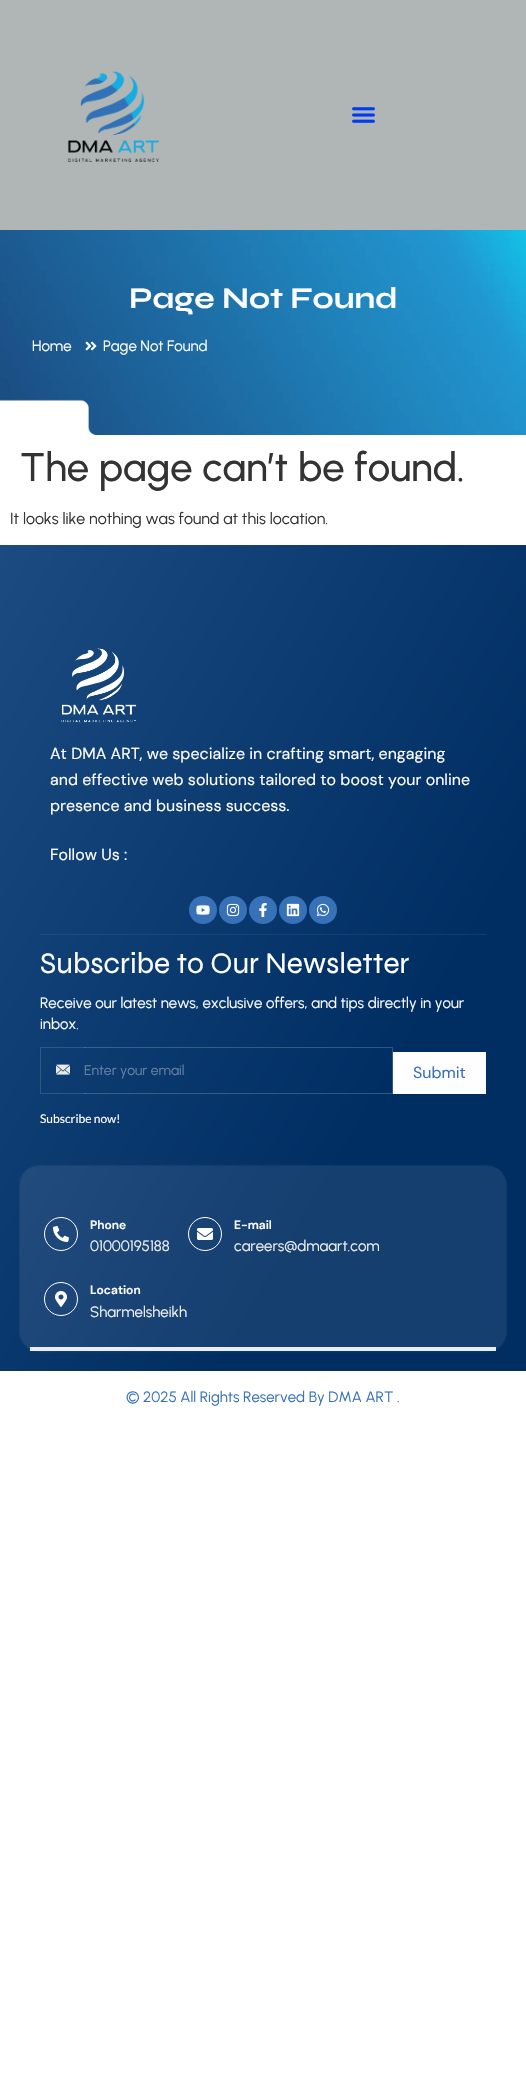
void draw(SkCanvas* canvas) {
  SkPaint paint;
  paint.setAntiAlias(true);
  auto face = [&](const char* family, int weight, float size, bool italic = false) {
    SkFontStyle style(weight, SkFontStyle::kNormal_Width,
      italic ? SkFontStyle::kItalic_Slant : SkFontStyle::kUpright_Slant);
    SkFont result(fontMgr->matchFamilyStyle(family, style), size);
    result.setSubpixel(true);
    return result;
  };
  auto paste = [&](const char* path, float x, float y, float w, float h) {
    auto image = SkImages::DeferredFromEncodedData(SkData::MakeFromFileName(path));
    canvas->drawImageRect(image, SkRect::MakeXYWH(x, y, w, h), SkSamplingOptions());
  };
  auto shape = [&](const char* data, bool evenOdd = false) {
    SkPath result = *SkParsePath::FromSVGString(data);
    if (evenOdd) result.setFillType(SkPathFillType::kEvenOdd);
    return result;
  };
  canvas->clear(0xffffffff);
  paint.setColor(0xffb0b6b6);
  canvas->drawRect(SkRect::MakeXYWH(0, 0, 526, 230), paint);
  paste("img/1.png", 67, 71, 92, 91);
  paste("img/2.png", 352, 107, 23, 16);
  paste("img/3.png", 0, 230, 526, 205);
  paste("img/4.png", 85, 341, 12, 10);
  {
    const SkColor colors[] = {0xff1b4b81, 0xff002e63};
    const float stops[] = {0, 0.7f};
    const SkPoint ends[] = {{-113, 741}, {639, 1175}};
    paint.setShader(SkGradientShader::MakeLinear(ends, colors, stops, 2, SkTileMode::kClamp));
    paint.setAlpha(255);
  }
  canvas->drawRect(SkRect::MakeXYWH(0, 545, 526, 826), paint);
  {
    const SkColor colors[] = {0xff295688, 0xff103b6c};
    const float stops[] = {0, 0.7f};
    const SkPoint ends[] = {{-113, 741}, {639, 1175}};
    paint.setShader(SkGradientShader::MakeLinear(ends, colors, stops, 2, SkTileMode::kClamp));
    paint.setAlpha(255);
  }
  canvas->drawRect(SkRect::MakeXYWH(40, 934, 446, 1), paint);
  paste("img/5.png", 61, 648, 76, 75);
  paint.setShader(nullptr);
  paint.setColor(0xff3771b8);
  canvas->drawCircle(203, 910, 14, paint);
  paste("img/6.png", 196, 905, 14, 10);
  canvas->drawCircle(233, 910, 14, paint);
  paste("img/7.png", 226, 903, 14, 14);
  canvas->drawCircle(263, 910, 14, paint);
  paste("img/8.png", 259, 903, 8, 14);
  canvas->drawCircle(293, 910, 14, paint);
  paste("img/9.png", 286, 903, 14, 14);
  canvas->drawCircle(323, 910, 14, paint);
  paste("img/10.png", 316, 903, 14, 13);
  paint.setColor(0xff305885);
  canvas->drawPath(shape("M40 1047H85V1048H41Z"), paint);
  paint.setColor(0xff2f5784);
  canvas->drawPath(shape("M85 1094H40L41 1093H85Z"), paint);
  paint.setColor(0x26f1f1f2);
  canvas->drawPath(shape("M40 1094V1047L41 1048V1093Z"), paint);
  paste("img/11.png", 56, 1064, 14, 11);
  paint.setColor(0x30fefeff);
  canvas->drawPath(shape("M84 1047H393L392 1048H84Z"), paint);
  canvas->drawPath(shape("M393 1047V1094L392 1093V1048Z"), paint);
  canvas->drawPath(shape("M393 1094H84V1093H392Z"), paint);
  paint.setColor(0xfffffefe);
  canvas->drawRect(SkRect::MakeXYWH(393, 1052, 93, 42), paint);
  canvas->save();
  canvas->clipPath(shape("M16 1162H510V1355H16ZM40 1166H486C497 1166 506 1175 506 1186V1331C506 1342 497 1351 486 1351H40C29 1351 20 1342 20 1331V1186C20 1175 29 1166 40 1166Z", true), true);
  paint.setColor(0x38c4c4c4);
  paint.setMaskFilter(SkMaskFilter::MakeBlur(kNormal_SkBlurStyle, 1));
  canvas->drawRoundRect(SkRect::MakeXYWH(20, 1166, 486, 185), 20, 20, paint);
  paint.setMaskFilter(nullptr);
  canvas->restore();
  paint.setColor(0x14ffffff);
  canvas->drawRoundRect(SkRect::MakeXYWH(20, 1166, 486, 185), 20, 20, paint);
  paint.setColor(0xe6ffffff);
  canvas->drawRect(SkRect::MakeXYWH(30, 1347, 466, 4), paint);
  paint.setStroke(true);
  paint.setStrokeWidth(1);
  paint.setColor(0xffffffff);
  canvas->drawCircle(61, 1234, 16.5f, paint);
  paste("img/12.png", 53, 1226, 16, 16);
  canvas->drawCircle(205, 1234, 16.5f, paint);
  paste("img/13.png", 197, 1228, 16, 12);
  canvas->drawCircle(61, 1299, 16.5f, paint);
  paste("img/14.png", 55, 1291, 12, 16);
  auto f0 = face("Syne", 700, 30);
  paint.setStroke(false);
  paint.setColor(0xfffffefe);
  canvas->drawString("Page Not Found", 129, 308, f0, paint);
  auto f1 = face("Urbanist", 400, 15);
  canvas->drawString("Home", 32, 351, f1, paint);
  canvas->drawString("Page Not Found", 103, 351, f1, paint);
  auto f2 = face("Urbanist", 500, 40);
  paint.setColor(0xff333333);
  canvas->drawString("The page can’t be found.", 20, 481, f2, paint);
  auto f3 = face("Urbanist", 400, 16);
  canvas->drawString("It looks like nothing was found at this location.", 10, 524, f3, paint);
  auto f4 = face("DM Sans", 400, 16);
  paint.setColor(0xfffffefe);
  {
    const struct { const char* s; float x, y; } items[] = {
      {"At DMA ART, we specialize in crafting smart, engaging", 50, 759},
      {"and effective web solutions tailored to boost your online", 50, 785},
      {"presence and business success.", 50, 811},
      {"Follow Us :", 50, 860},
    };
    for (auto [s, x, y] : items) {
      canvas->drawString(s, x, y, f4, paint);
    }
  }
  auto f5 = face("Syne", 400, 30);
  canvas->drawString("Subscribe to Our Newsletter", 40, 973, f5, paint);
  canvas->drawString("Receive our latest news, exclusive offers, and tips directly in your", 40, 1008, f1, paint);
  canvas->drawString("inbox.", 40, 1029, f1, paint);
  auto f6 = face("Urbanist", 400, 14);
  paint.setColor(0xff6683a3);
  canvas->drawString("Enter your email", 84, 1075, f6, paint);
  paint.setColor(0xff3771b8);
  canvas->drawString("Submit", 413, 1078, f4, paint);
  auto f7 = face("Lato", 400, 12);
  paint.setColor(0xfffffefe);
  canvas->drawString("Subscribe now!", 40, 1123, f7, paint);
  auto f8 = face("DM Sans", 600, 12);
  canvas->drawString("Phone", 90, 1229, f8, paint);
  paint.setColor(0xfff1f1f2);
  canvas->drawString("01000195188", 90, 1251, f1, paint);
  paint.setColor(0xfffffefe);
  canvas->drawString("E-mail", 234, 1229, f8, paint);
  paint.setColor(0xfff1f1f2);
  canvas->drawString("careers@dmaart.com", 234, 1251, f1, paint);
  paint.setColor(0xfffffefe);
  canvas->drawString("Location", 90, 1294, f8, paint);
  paint.setColor(0xfff1f1f2);
  canvas->drawString("Sharmelsheikh", 90, 1317, f1, paint);
  paint.setColor(0xff3771b8);
  canvas->drawString("© 2025 All Rights Reserved By DMA ART .", 126, 1402, f1, paint);
}
